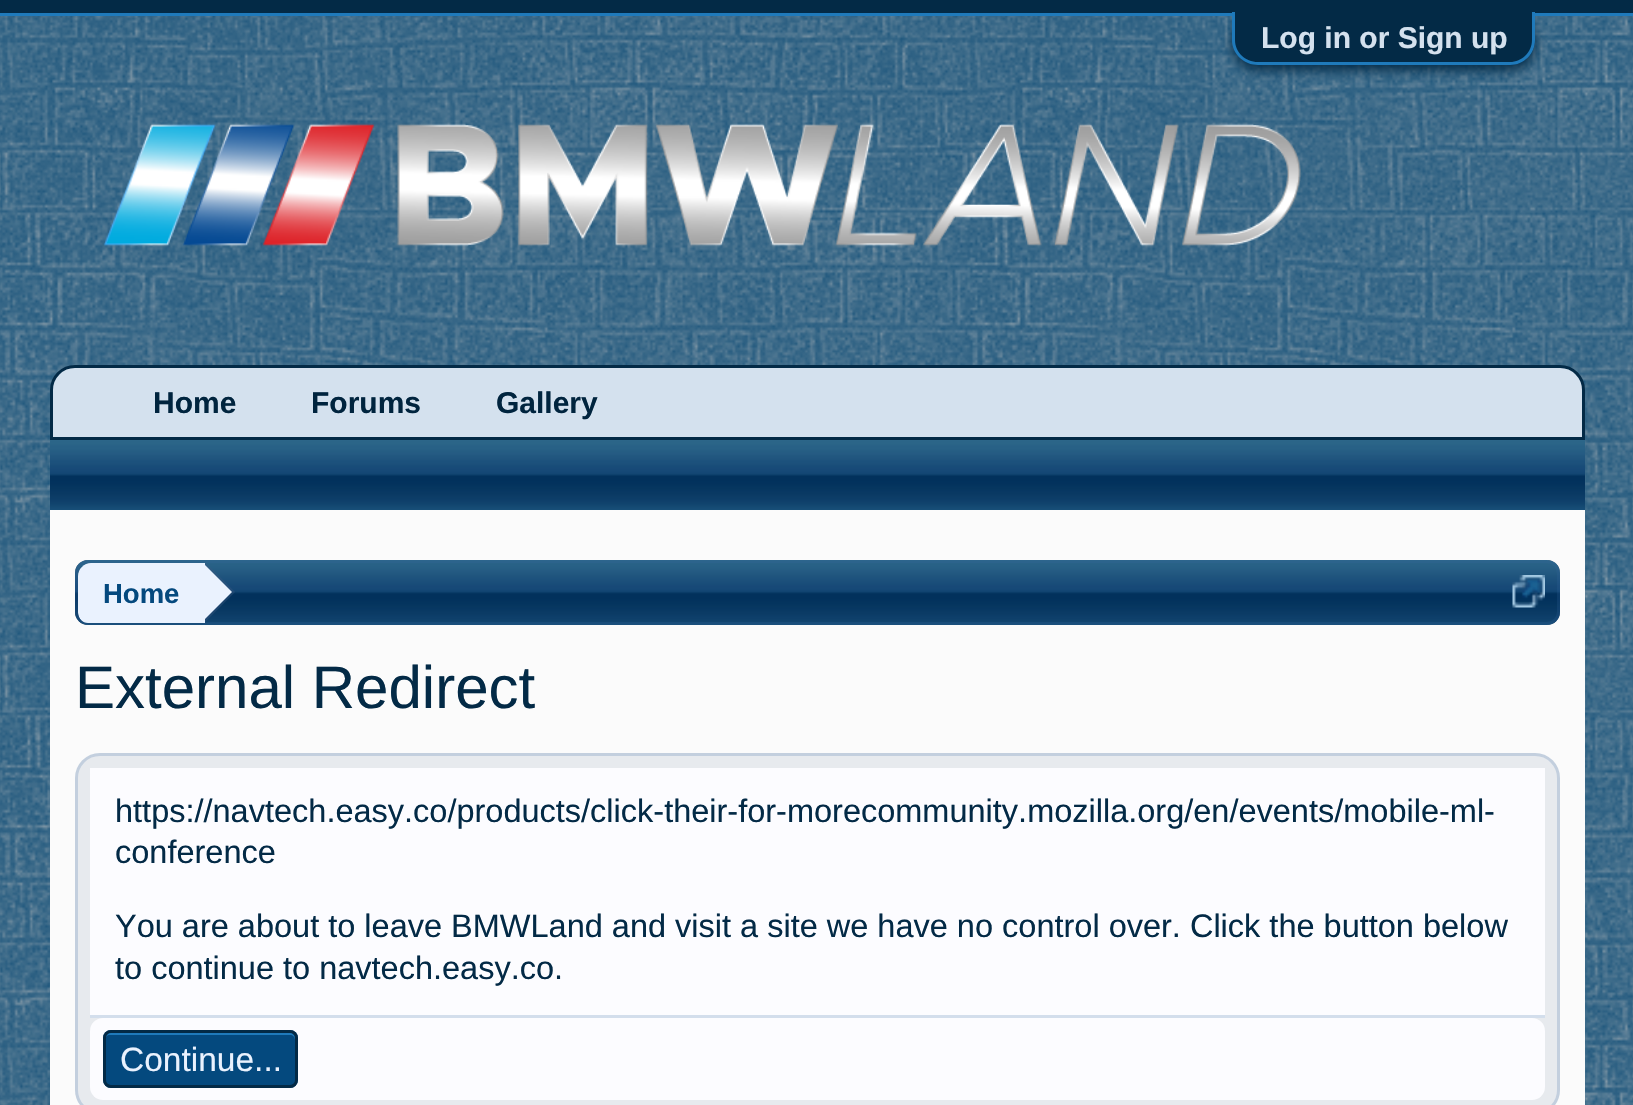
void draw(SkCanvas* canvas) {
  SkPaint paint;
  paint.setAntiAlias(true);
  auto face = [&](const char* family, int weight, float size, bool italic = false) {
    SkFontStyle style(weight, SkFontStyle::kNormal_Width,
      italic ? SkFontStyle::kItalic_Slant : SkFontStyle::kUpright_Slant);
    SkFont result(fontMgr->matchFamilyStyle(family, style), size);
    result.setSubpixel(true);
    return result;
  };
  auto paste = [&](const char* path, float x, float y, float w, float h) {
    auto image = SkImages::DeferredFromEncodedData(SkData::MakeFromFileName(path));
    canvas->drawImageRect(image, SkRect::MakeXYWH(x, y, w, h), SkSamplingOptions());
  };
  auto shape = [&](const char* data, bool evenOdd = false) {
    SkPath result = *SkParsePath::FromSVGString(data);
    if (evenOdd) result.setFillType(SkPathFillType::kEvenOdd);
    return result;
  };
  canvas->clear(0xff004472);
  paste("img/1.png", 0, 510, 1633, 595);
  paint.setColor(0xff032a46);
  canvas->drawRect(SkRect::MakeXYWH(0, 0, 1633, 13), paint);
  paint.setColor(0xff1f7abb);
  canvas->drawRect(SkRect::MakeXYWH(0, 13, 1633, 3), paint);
  paste("img/2.png", 0, 16, 1633, 494);
  paint.setColor(0xff032a46);
  paint.setMaskFilter(SkMaskFilter::MakeBlur(kNormal_SkBlurStyle, 6));
  canvas->drawRoundRect(SkRect::MakeXYWH(1233, 18, 302, 52), 25, 25, paint);
  paint.setMaskFilter(nullptr);
  canvas->drawPath(shape("M1233 13H1535V40C1535 54 1524 65 1510 65H1258C1244 65 1233 54 1233 40Z"), paint);
  paint.setColor(0xff1f7abb);
  canvas->drawPath(shape("M1232 12H1535V40C1535 54 1524 65 1510 65H1258C1244 65 1232 54 1232 40ZM1235 12H1532V40C1532 52 1522 62 1510 62H1258C1245 62 1235 52 1235 40Z", true), paint);
  paste("img/3.png", 103, 123, 1198, 124);
  paint.setColor(0xffd4e1ee);
  canvas->drawPath(shape("M75 366.5H1560C1573 366.5 1583.5 377 1583.5 390V438.5H51.5V390C51.5 377 62 366.5 75 366.5Z"), paint);
  paint.setStroke(true);
  paint.setStrokeWidth(3);
  paint.setColor(0xff032a46);
  canvas->drawPath(shape("M75 366.5H1560C1573 366.5 1583.5 377 1583.5 390V438.5H51.5V390C51.5 377 62 366.5 75 366.5Z"), paint);
  paint.setStroke(false);
  paint.setColor(0xff00243e);
  canvas->drawRect(SkRect::MakeXYWH(50, 440, 1535, 70), paint);
  paste("img/4.png", 50, 440, 1535, 70);
  paint.setColor(0xfffbfbfb);
  canvas->drawRect(SkRect::MakeXYWH(50, 510, 1535, 595), paint);
  paint.setColor(0xff00243e);
  canvas->drawRoundRect(SkRect::MakeXYWH(75, 560, 1485, 65), 13, 13, paint);
  paste("img/5.png", 75, 560, 1485, 65);
  paint.setStroke(true);
  paint.setColor(0x3331669e);
  canvas->drawRoundRect(SkRect::MakeXYWH(76.5f, 561.5f, 1482, 62), 11.5f, 11.5f, paint);
  canvas->save();
  canvas->clipPath(shape("M88 563H1548C1553.5 563 1558 567.5 1558 573V613C1558 618.5 1553.5 623 1548 623H88C82.5 623 78 618.5 78 613V573C78 567.5 82.5 563 88 563Z"), true);
  paint.setStroke(false);
  paint.setColor(0xffeaf2fe);
  canvas->drawPath(shape("M91 563H205V625H91C84 625 78 619 78 612V576C78 569 84 563 91 563Z"), paint);
  canvas->restore();
  paint.setColor(0x663a5880);
  canvas->drawPath(shape("M205 622L235 592L206 563H205Z"), paint);
  paint.setColor(0xffeaf2fe);
  canvas->drawPath(shape("M202 622L232 592L203 563H202Z"), paint);
  paste("img/6.png", 1512, 575, 33, 33);
  paint.setColor(0xffe7eaee);
  canvas->drawRoundRect(SkRect::MakeXYWH(75, 753, 1485, 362), 25, 25, paint);
  paint.setStroke(true);
  paint.setColor(0x3331669e);
  canvas->drawRoundRect(SkRect::MakeXYWH(76.5f, 754.5f, 1482, 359), 23.5f, 23.5f, paint);
  paint.setStroke(false);
  paint.setColor(0xfffcfcff);
  canvas->drawRect(SkRect::MakeXYWH(90, 768, 1455, 247), paint);
  paint.setColor(0xffd3deec);
  canvas->drawRect(SkRect::MakeXYWH(90, 1015, 1455, 3), paint);
  paint.setColor(0xfffcfcff);
  canvas->drawRoundRect(SkRect::MakeXYWH(90, 1018, 1455, 82), 13, 13, paint);
  paint.setColor(0xff04497e);
  canvas->drawRoundRect(SkRect::MakeXYWH(103, 1030, 195, 58), 8, 8, paint);
  paint.setColor(0xff1f7abb);
  canvas->drawPath(shape("M110 1035H290C293 1035 295 1037 295 1040V1038C295 1035 293 1033 290 1033H110C107 1033 105 1035 105 1038V1040C105 1037 107 1035 110 1035Z"), paint);
  paint.setStroke(true);
  paint.setColor(0xff032a46);
  canvas->drawRoundRect(SkRect::MakeXYWH(104.5f, 1031.5f, 192, 55), 6.5f, 6.5f, paint);
  auto f0 = face("Liberation Sans", 700, 30);
  paint.setStroke(false);
  paint.setColor(0xffd4e1ee);
  canvas->drawString("Log in or Sign up", 1261, 48, f0, paint);
  paint.setColor(0xff00243e);
  {
    const struct { const char* s; float x, y; } items[] = {
      {"Home", 153, 413},
      {"Forums", 311, 413},
      {"Gallery", 496, 413},
    };
    for (auto [s, x, y] : items) {
      canvas->drawString(s, x, y, f0, paint);
    }
  }
  auto f1 = face("Liberation Sans", 700, 27.5f);
  paint.setColor(0xff04497e);
  canvas->drawString("Home", 103, 603, f1, paint);
  auto f2 = face("Liberation Sans", 400, 60);
  paint.setColor(0xff032a46);
  canvas->drawString("External Redirect", 75, 708, f2, paint);
  auto f3 = face("Liberation Sans", 400, 32.5f);
  {
    const struct { const char* s; float x, y; } items[] = {
      {"https://navtech.easy.co/products/click-their-for-morecommunity.mozilla.org/en/events/mobile-ml-", 115, 822},
      {"conference", 115, 863},
      {"You are about to leave BMWLand and visit a site we have no control over. Click the button below", 115, 937},
      {"to continue to navtech.easy.co.", 115, 979},
    };
    for (auto [s, x, y] : items) {
      canvas->drawString(s, x, y, f3, paint);
    }
  }
  auto f4 = face("Liberation Sans", 400, 33.5f);
  paint.setColor(0xffeaf2fe);
  canvas->drawString("Continue...", 120, 1071, f4, paint);
}
